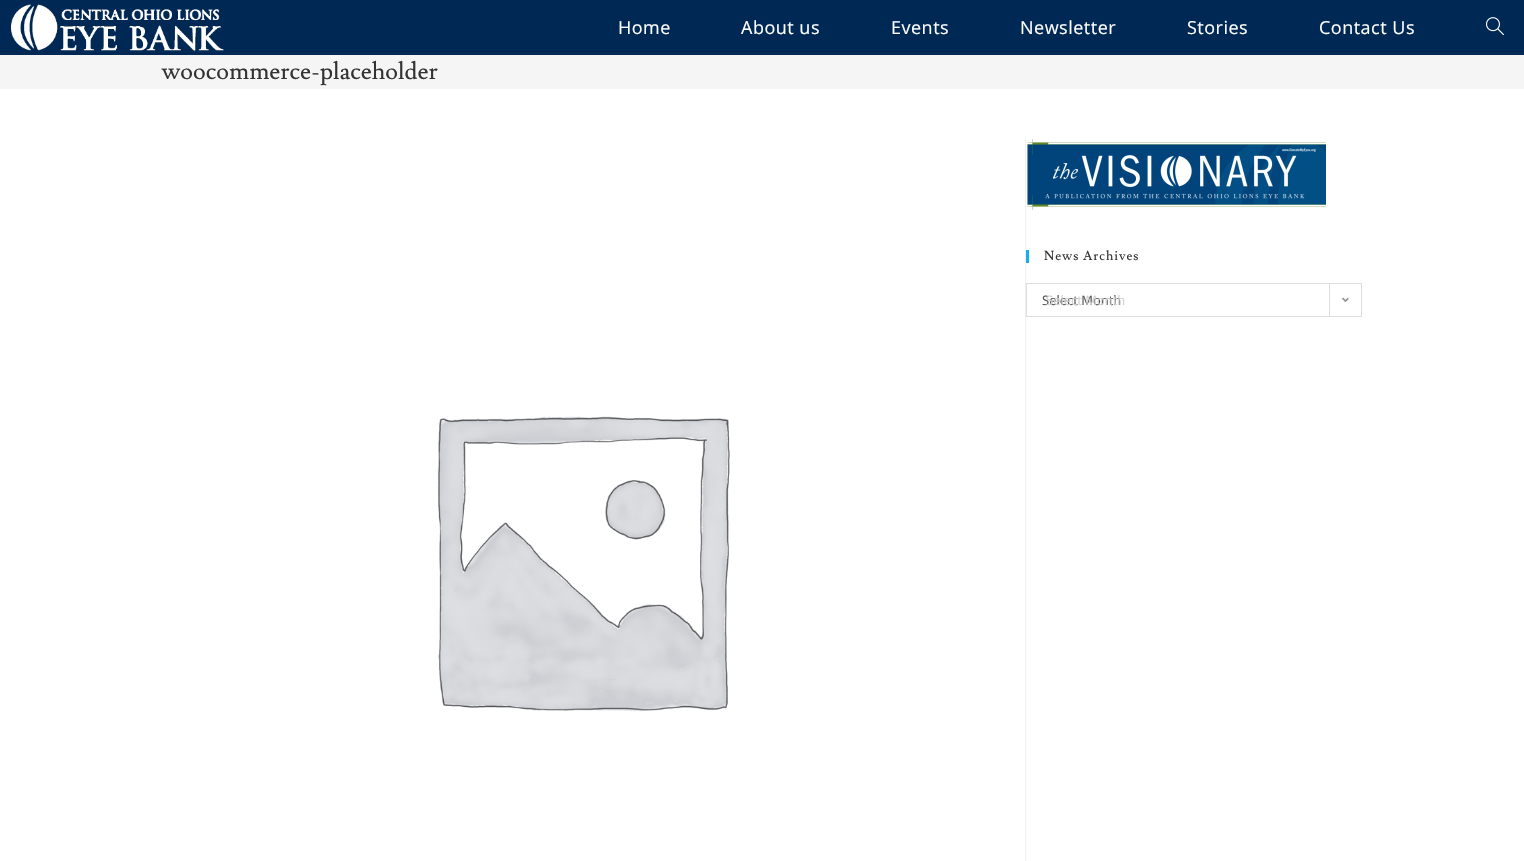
void draw(SkCanvas* canvas) {
  SkPaint paint;
  paint.setAntiAlias(true);
  auto face = [&](const char* family, int weight, float size, bool italic = false) {
    SkFontStyle style(weight, SkFontStyle::kNormal_Width,
      italic ? SkFontStyle::kItalic_Slant : SkFontStyle::kUpright_Slant);
    SkFont result(fontMgr->matchFamilyStyle(family, style), size);
    result.setSubpixel(true);
    return result;
  };
  auto writeSpaced = [&](const char* s, float x, float y, const SkFont& font, const SkPaint& ink, float letter, float word) {
    std::vector<SkGlyphID> glyphs(font.countText(s, strlen(s), SkTextEncoding::kUTF8));
    std::vector<float> xs(glyphs.size());
    font.textToGlyphs(s, strlen(s), SkTextEncoding::kUTF8, glyphs);
    font.getXPos(glyphs, xs, x);
    float extra = 0;
    for (size_t i = 0; i < glyphs.size(); i++) {
      xs[i] += extra;
      extra += letter + word * (glyphs[i] == font.unicharToGlyph(' '));
    }
    canvas->drawTextBlob(SkTextBlob::MakeFromPosHGlyphs(glyphs, xs, y, font), 0, 0, ink);
  };
  auto paste = [&](const char* path, float x, float y, float w, float h) {
    auto image = SkImages::DeferredFromEncodedData(SkData::MakeFromFileName(path));
    canvas->drawImageRect(image, SkRect::MakeXYWH(x, y, w, h), SkSamplingOptions());
  };
  auto shape = [&](const char* data, bool evenOdd = false) {
    SkPath result = *SkParsePath::FromSVGString(data);
    if (evenOdd) result.setFillType(SkPathFillType::kEvenOdd);
    return result;
  };
  canvas->clear(0xffffffff);
  paint.setColor(0xff002855);
  canvas->drawRect(SkRect::MakeXYWH(0, 0, 1524, 55), paint);
  paste("img/1.png", 11, 4, 213, 47);
  paste("img/2.png", 1486, 17, 18, 19);
  paint.setColor(0xfff5f5f5);
  canvas->drawRect(SkRect::MakeXYWH(0, 55, 1524, 34), paint);
  paint.setColor(0xfff1f1f1);
  canvas->drawRect(SkRect::MakeXYWH(1025, 139, 1, 722), paint);
  paste("img/3.png", 437, 416, 293, 296);
  paste("img/4.png", 1027, 139, 299, 71);
  paint.setColor(0xff13aff0);
  canvas->drawRect(SkRect::MakeXYWH(1026, 250, 3, 13), paint);
  paint.setStroke(true);
  paint.setStrokeWidth(1);
  paint.setColor(0xffdddddd);
  canvas->drawRect(SkRect::MakeXYWH(1026.5f, 283.5f, 335, 33), paint);
  paint.setStroke(false);
  canvas->drawRect(SkRect::MakeXYWH(1329, 284, 1, 32), paint);
  paste("img/5.png", 1342, 297, 7, 5);
  paint.setStroke(true);
  paint.setStrokeWidth(2);
  paint.setColor(0xffffffff);
  canvas->drawPath(shape("M1349 297.5L1353 301.5L1357 297.5"), paint);
  auto f0 = face("Open Sans", 400, 18);
  paint.setStroke(false);
  {
    const struct { const char* s; float x, y; } items[] = {
      {"Home", 618, 34},
      {"About us", 741, 34},
      {"Events", 891, 34},
      {"Newsletter", 1020, 34},
      {"Stories", 1187, 34},
      {"Contact Us", 1319, 34},
    };
    for (auto [s, x, y] : items) {
      writeSpaced(s, x, y, f0, paint, 0.5f, 0);
    }
  }
  auto f1 = face("Lusitana", 400, 24);
  paint.setColor(0xff333333);
  canvas->drawString("woocommerce-placeholder", 162, 79, f1, paint);
  auto f2 = face("Lusitana", 400, 13);
  writeSpaced("News Archives", 1044, 260, f2, paint, 1, 0);
  auto f3 = face("Open Sans", 400, 13);
  paint.setColor(0xff555555);
  canvas->drawString("Select Month", 1042, 305, f3, paint);
  paint.setColor(0xffd1d1d1);
  canvas->drawString("Select Month", 1046, 305, f3, paint);
}
